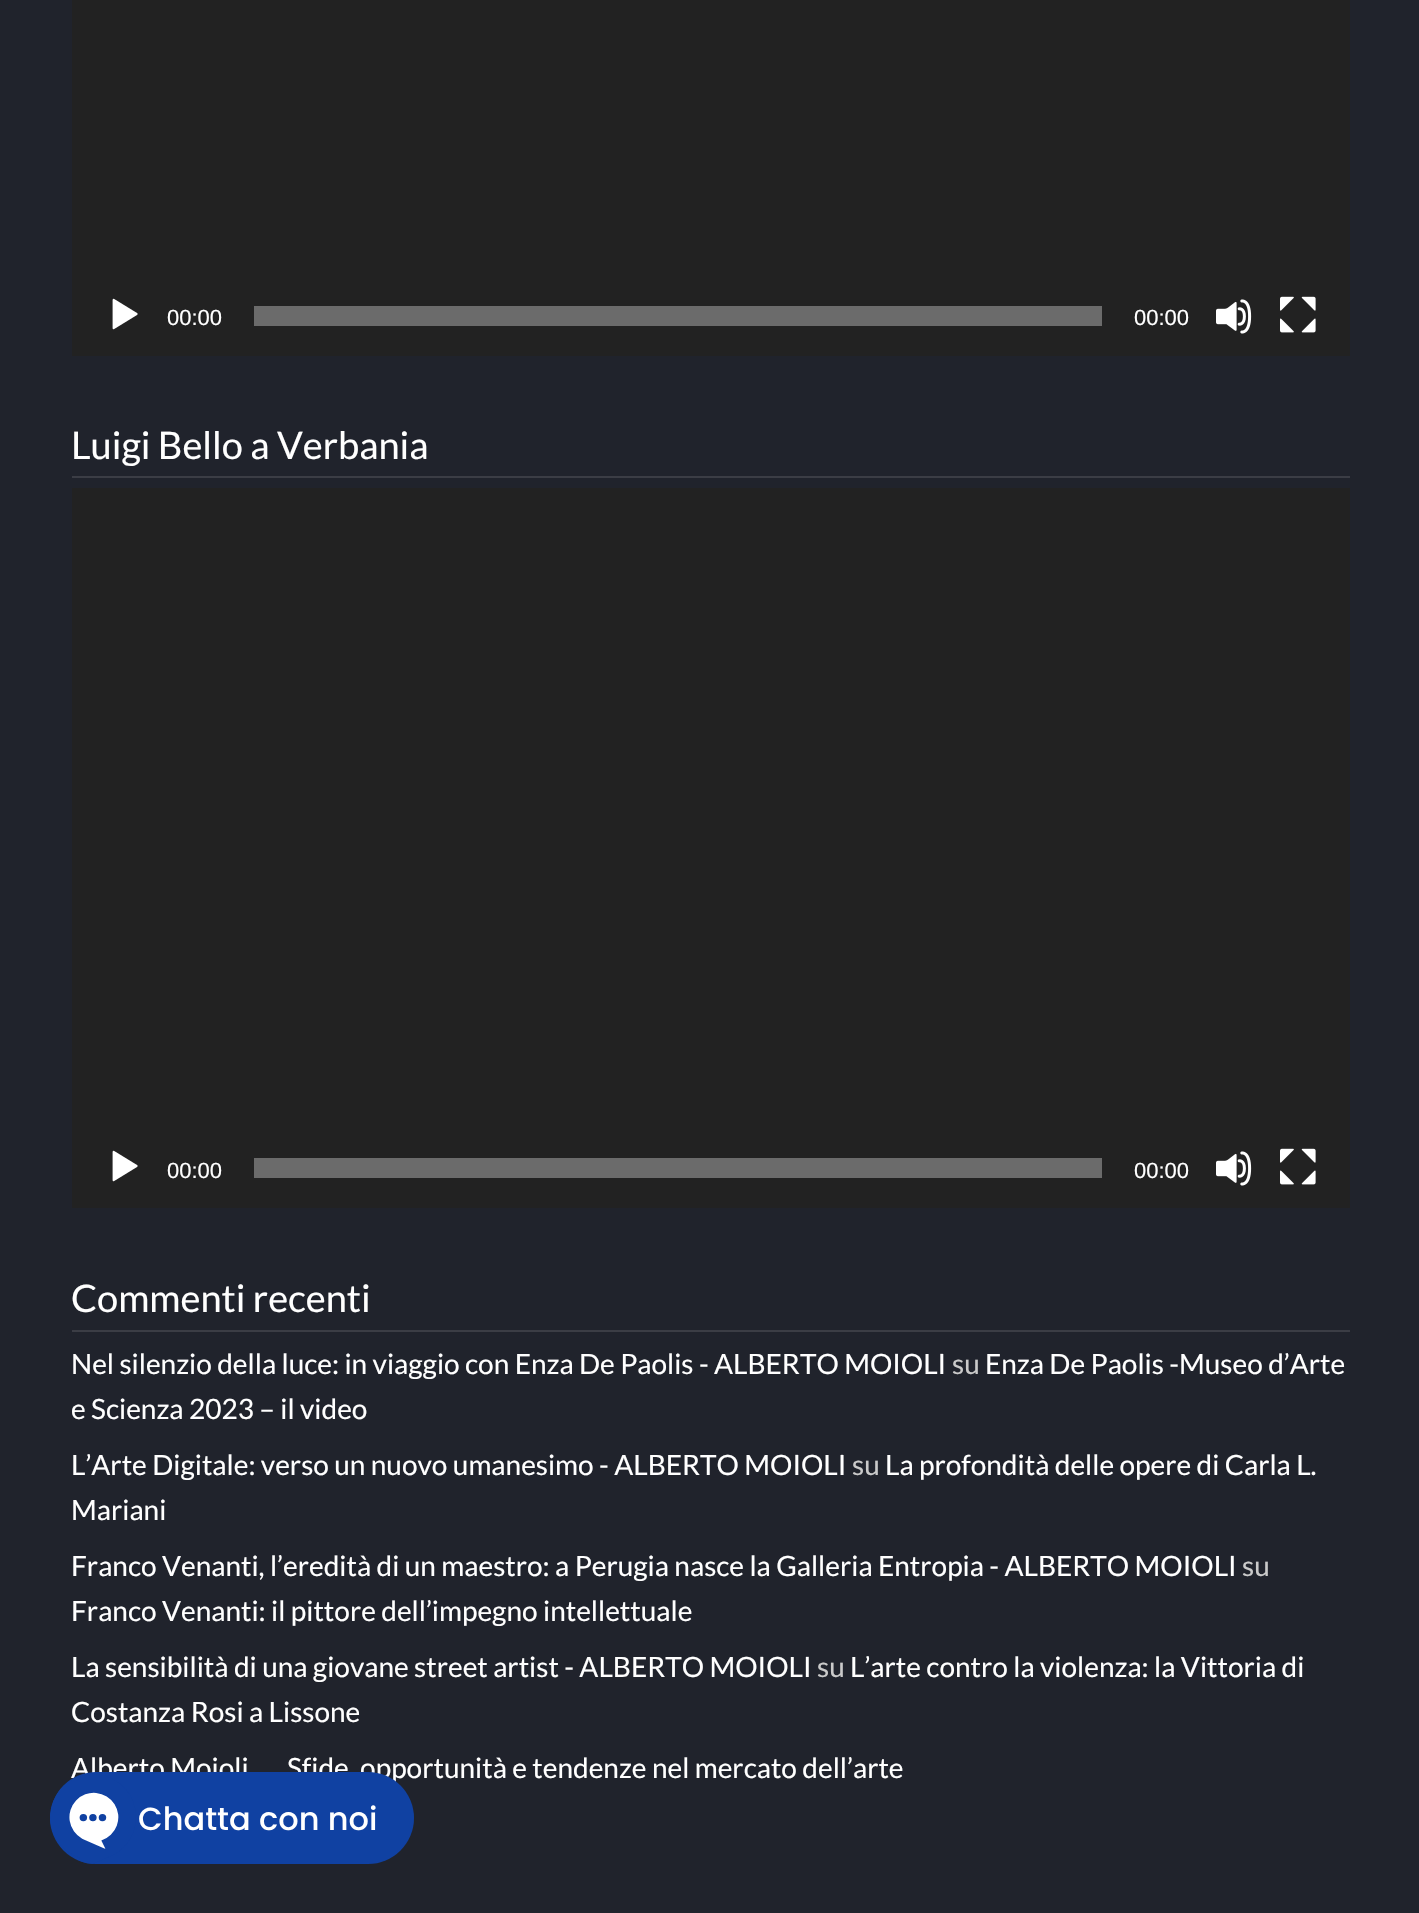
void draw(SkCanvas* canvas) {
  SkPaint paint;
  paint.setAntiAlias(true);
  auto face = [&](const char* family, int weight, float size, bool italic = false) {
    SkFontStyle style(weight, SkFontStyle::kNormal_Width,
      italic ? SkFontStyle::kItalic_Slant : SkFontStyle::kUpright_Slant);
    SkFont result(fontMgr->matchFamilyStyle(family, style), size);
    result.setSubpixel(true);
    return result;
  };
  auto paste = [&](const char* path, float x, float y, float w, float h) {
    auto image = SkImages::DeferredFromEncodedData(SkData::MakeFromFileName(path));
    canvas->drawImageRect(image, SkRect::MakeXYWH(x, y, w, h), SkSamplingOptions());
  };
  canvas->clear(0xff20232c);
  paint.setColor(0xff222222);
  canvas->drawRect(SkRect::MakeXYWH(72, 0, 1278, 356), paint);
  paste("img/1.png", 112, 298, 26, 32);
  paint.setColor(0xff6b6b6b);
  canvas->drawRect(SkRect::MakeXYWH(254, 306, 848, 20), paint);
  paste("img/2.png", 1216, 299, 36, 35);
  paste("img/3.png", 1280, 296, 36, 37);
  paint.setColor(0xff3b3d45);
  canvas->drawRect(SkRect::MakeXYWH(72, 476, 1278, 2), paint);
  paint.setColor(0xff222222);
  canvas->drawRect(SkRect::MakeXYWH(72, 488, 1278, 720), paint);
  paste("img/1.png", 112, 1150, 26, 32);
  paint.setColor(0xff6b6b6b);
  canvas->drawRect(SkRect::MakeXYWH(254, 1158, 848, 20), paint);
  paste("img/2.png", 1216, 1151, 36, 35);
  paste("img/3.png", 1280, 1148, 36, 37);
  paint.setColor(0xff3b3d45);
  canvas->drawRect(SkRect::MakeXYWH(72, 1330, 1278, 2), paint);
  auto f0 = face("Liberation Sans", 400, 22);
  paint.setColor(0xffffffff);
  canvas->drawString("00:00", 167, 325, f0, paint);
  canvas->drawString("00:00", 1134, 325, f0, paint);
  auto f1 = face("Lato", 400, 38);
  canvas->drawString("Luigi Bello a Verbania", 71, 459, f1, paint);
  canvas->drawString("00:00", 167, 1178, f0, paint);
  canvas->drawString("00:00", 1134, 1178, f0, paint);
  canvas->drawString("Commenti recenti", 71, 1312, f1, paint);
  auto f2 = face("Lato", 400, 28);
  canvas->drawString("Nel silenzio della luce: in viaggio con Enza De Paolis - ALBERTO MOIOLI", 71, 1374, f2, paint);
  paint.setColor(0xffcacaca);
  canvas->drawString("su", 952, 1374, f2, paint);
  paint.setColor(0xffffffff);
  {
    const struct { const char* s; float x, y; } items[] = {
      {"Enza De Paolis -Museo d’Arte", 985, 1374},
      {"e Scienza 2023 – il video", 71, 1419},
      {"L’Arte Digitale: verso un nuovo umanesimo - ALBERTO MOIOLI", 71, 1475},
    };
    for (auto [s, x, y] : items) {
      canvas->drawString(s, x, y, f2, paint);
    }
  }
  paint.setColor(0xffcacaca);
  canvas->drawString("su", 852, 1475, f2, paint);
  paint.setColor(0xffffffff);
  {
    const struct { const char* s; float x, y; } items[] = {
      {"La profondità delle opere di Carla L.", 885, 1475},
      {"Mariani", 71, 1520},
      {"Franco Venanti, l’eredità di un maestro: a Perugia nasce la Galleria Entropia - ALBERTO MOIOLI", 71, 1576},
    };
    for (auto [s, x, y] : items) {
      canvas->drawString(s, x, y, f2, paint);
    }
  }
  paint.setColor(0xffcacaca);
  canvas->drawString("su", 1242, 1576, f2, paint);
  paint.setColor(0xffffffff);
  canvas->drawString("Franco Venanti: il pittore dell’impegno intellettuale", 71, 1621, f2, paint);
  canvas->drawString("La sensibilità di una giovane street artist - ALBERTO MOIOLI", 71, 1677, f2, paint);
  paint.setColor(0xffcacaca);
  canvas->drawString("su", 817, 1677, f2, paint);
  paint.setColor(0xffffffff);
  {
    const struct { const char* s; float x, y; } items[] = {
      {"L’arte contro la violenza: la Vittoria di", 850, 1677},
      {"Costanza Rosi a Lissone", 71, 1722},
      {"Alberto Moioli", 71, 1778},
      {"Sfide, opportunità e tendenze nel mercato dell’arte", 287, 1778},
    };
    for (auto [s, x, y] : items) {
      canvas->drawString(s, x, y, f2, paint);
    }
  }
  paste("img/4.png", 50, 1772, 364, 92);
}
